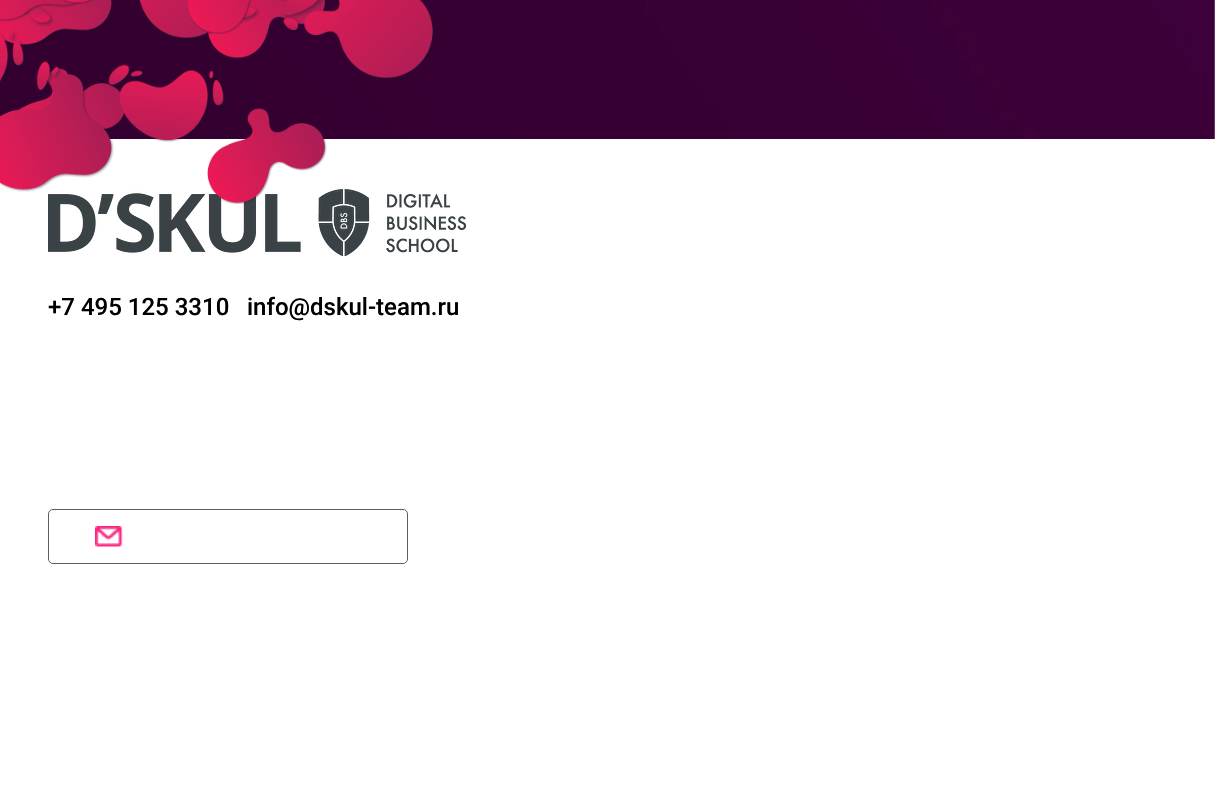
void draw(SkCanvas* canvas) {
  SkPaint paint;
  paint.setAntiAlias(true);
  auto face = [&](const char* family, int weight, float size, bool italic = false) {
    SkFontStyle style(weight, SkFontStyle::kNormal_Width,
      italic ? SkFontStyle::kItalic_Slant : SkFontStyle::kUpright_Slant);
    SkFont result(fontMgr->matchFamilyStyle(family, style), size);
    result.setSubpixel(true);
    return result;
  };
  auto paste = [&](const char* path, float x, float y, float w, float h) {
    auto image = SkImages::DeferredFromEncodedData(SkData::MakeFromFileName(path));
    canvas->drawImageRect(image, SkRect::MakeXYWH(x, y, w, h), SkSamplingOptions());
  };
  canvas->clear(0xffffffff);
  paste("img/1.png", 0, 0, 1215, 139);
  paste("img/2.png", 0, 0, 327, 59);
  paste("img/7.png", 0, 35, 6, 11);
  paste("img/3.png", 0, 0, 214, 131);
  paste("img/8.png", 48, 189, 418, 67);
  paste("img/4.png", 0, 0, 435, 204);
  paste("img/5.png", 0, 0, 288, 34);
  paste("img/6.png", 62, 0, 32, 4);
  paint.setStroke(true);
  paint.setStrokeWidth(1);
  paint.setColor(0xff5e5e5e);
  canvas->drawRoundRect(SkRect::MakeXYWH(48.5f, 509.5f, 359, 54), 4.5f, 4.5f, paint);
  paste("img/9.png", 95, 526, 28, 21);
  auto f0 = face("Roboto", 500, 24);
  paint.setStroke(false);
  paint.setColor(0xff000000);
  canvas->drawString("+7 495 125 3310", 48, 315, f0, paint);
  canvas->drawString("info@dskul-team.ru", 247, 315, f0, paint);
}
